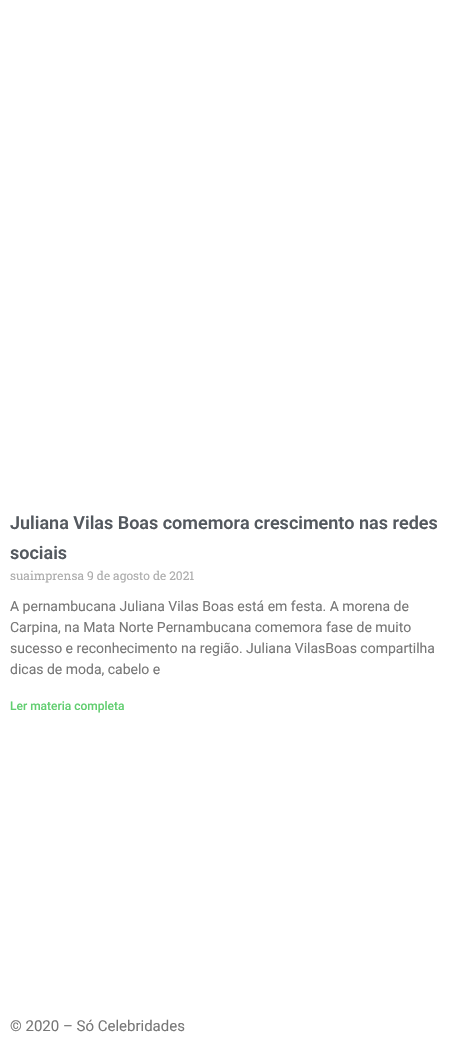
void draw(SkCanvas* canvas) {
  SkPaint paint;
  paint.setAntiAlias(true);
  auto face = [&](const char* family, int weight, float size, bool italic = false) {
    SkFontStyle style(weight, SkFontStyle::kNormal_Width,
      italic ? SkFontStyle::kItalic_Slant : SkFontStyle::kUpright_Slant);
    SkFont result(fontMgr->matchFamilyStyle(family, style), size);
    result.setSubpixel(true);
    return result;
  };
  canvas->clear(0xffffffff);
  auto f0 = face("Roboto", 600, 18);
  paint.setColor(0xff54595f);
  canvas->drawString("Juliana Vilas Boas comemora crescimento nas redes", 10, 529, f0, paint);
  canvas->drawString("sociais", 10, 559, f0, paint);
  auto f1 = face("Roboto Slab", 400, 12);
  paint.setColor(0xffadadad);
  canvas->drawString("suaimprensa 9 de agosto de 2021", 10, 580, f1, paint);
  auto f2 = face("Roboto", 400, 14);
  paint.setColor(0xff777777);
  {
    const struct { const char* s; float x, y; } items[] = {
      {"A pernambucana Juliana Vilas Boas está em festa. A morena de", 10, 611},
      {"Carpina, na Mata Norte Pernambucana comemora fase de muito", 10, 632},
      {"sucesso e reconhecimento na região. Juliana VilasBoas compartilha", 10, 653},
      {"dicas de moda, cabelo e", 10, 674},
    };
    for (auto [s, x, y] : items) {
      canvas->drawString(s, x, y, f2, paint);
    }
  }
  auto f3 = face("Roboto", 500, 12);
  paint.setColor(0xff61ce70);
  canvas->drawString("Ler materia completa", 10, 710, f3, paint);
  auto f4 = face("Roboto", 400, 15);
  paint.setColor(0xff777777);
  canvas->drawString("© 2020 – Só Celebridades", 10, 1031, f4, paint);
}
